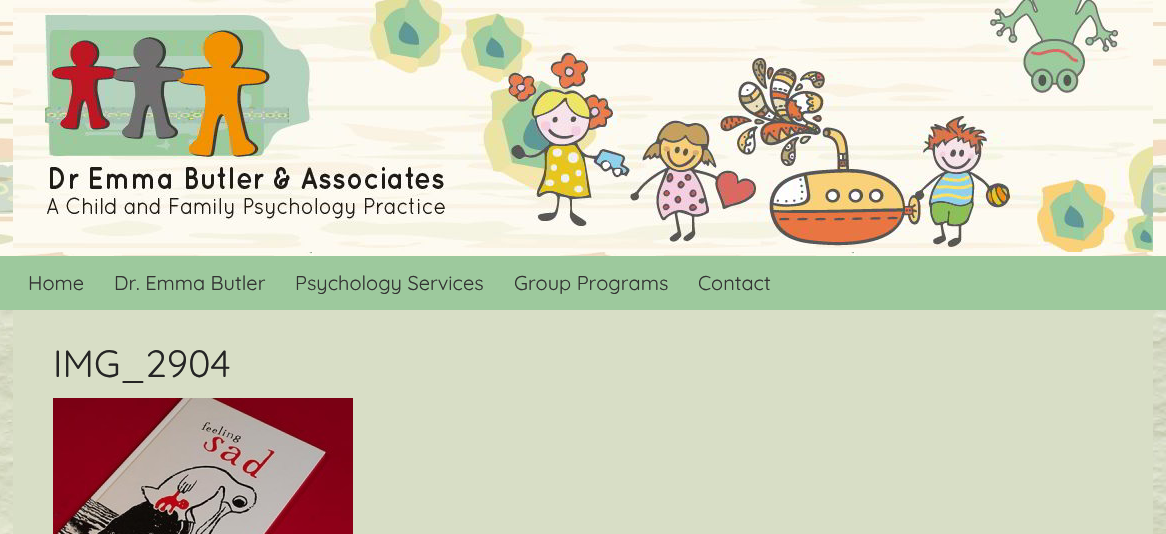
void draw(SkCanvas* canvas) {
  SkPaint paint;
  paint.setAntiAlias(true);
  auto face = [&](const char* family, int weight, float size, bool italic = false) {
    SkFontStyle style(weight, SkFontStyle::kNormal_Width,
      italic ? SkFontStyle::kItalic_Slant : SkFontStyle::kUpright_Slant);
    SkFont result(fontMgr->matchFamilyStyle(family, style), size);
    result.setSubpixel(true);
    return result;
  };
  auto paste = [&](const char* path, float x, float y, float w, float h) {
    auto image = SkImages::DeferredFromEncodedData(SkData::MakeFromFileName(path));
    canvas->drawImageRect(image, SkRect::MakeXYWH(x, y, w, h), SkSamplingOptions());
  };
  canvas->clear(0xffffffff);
  paste("img/1.png", 0, 310, 1166, 224);
  paste("img/2.png", 0, 0, 1166, 256);
  paste("img/3.png", 13, 0, 1140, 252);
  paint.setColor(0xff9dc99d);
  canvas->drawRect(SkRect::MakeXYWH(0, 256, 1166, 54), paint);
  paint.setColor(0xffd8dec6);
  canvas->drawRect(SkRect::MakeXYWH(13, 310, 1140, 224), paint);
  paste("img/4.png", 53, 398, 300, 136);
  auto f0 = face("Quicksand", 400, 20);
  paint.setColor(0xff333333);
  {
    const struct { const char* s; float x, y; } items[] = {
      {"Home", 28, 290},
      {"Dr. Emma Butler", 114, 290},
      {"Psychology Services", 295, 290},
      {"Group Programs", 514, 290},
      {"Contact", 698, 290},
    };
    for (auto [s, x, y] : items) {
      canvas->drawString(s, x, y, f0, paint);
    }
  }
  auto f1 = face("Quicksand", 400, 38);
  paint.setColor(0xff242424);
  canvas->drawString("IMG_2904", 53, 377, f1, paint);
}
